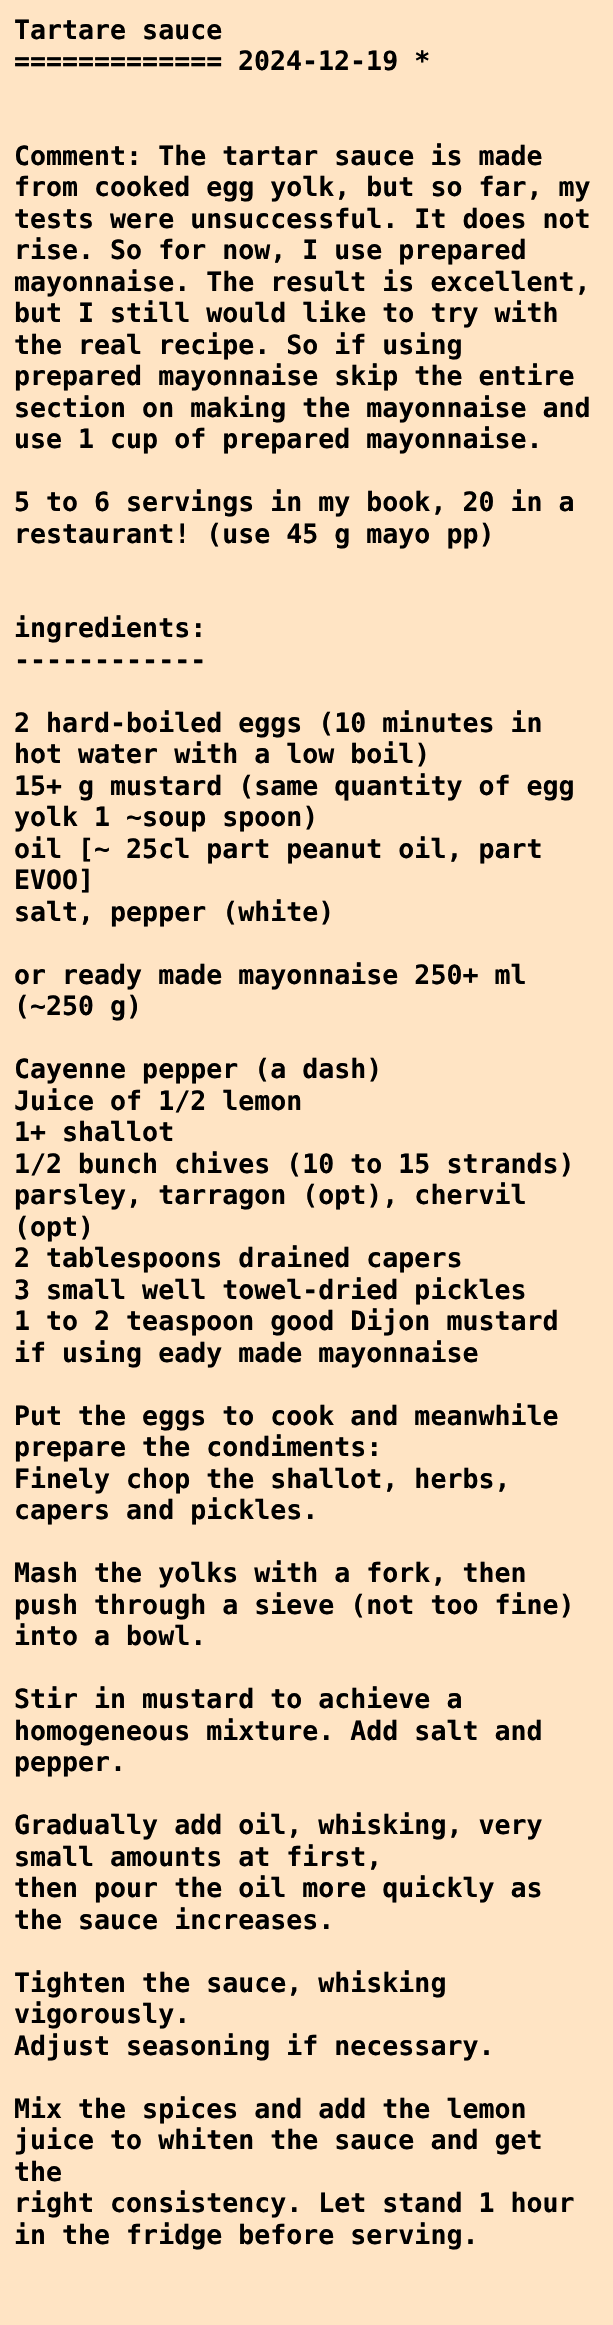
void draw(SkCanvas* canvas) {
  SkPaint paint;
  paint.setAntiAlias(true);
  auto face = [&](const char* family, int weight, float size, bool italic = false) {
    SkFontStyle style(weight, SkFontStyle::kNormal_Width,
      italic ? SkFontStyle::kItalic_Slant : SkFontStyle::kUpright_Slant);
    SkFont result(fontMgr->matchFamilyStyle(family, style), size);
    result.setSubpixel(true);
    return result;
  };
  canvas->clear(0xffffe4c4);
  auto f0 = face("DejaVu Sans Mono", 700, 26.6f);
  paint.setColor(0xff000000);
  {
    const struct { const char* s; float x, y; } items[] = {
      {"Tartare sauce", 14, 39},
      {"=============", 14, 70},
      {"2024-12-19 *", 238, 70},
      {"Comment: The tartar sauce is made", 14, 165},
      {"from cooked egg yolk, but so far, my", 14, 196},
      {"tests were unsuccessful. It does not", 14, 228},
      {"rise. So for now, I use prepared", 14, 259},
      {"mayonnaise. The result is excellent,", 14, 291},
      {"but I still would like to try with", 14, 322},
      {"the real recipe. So if using", 14, 354},
      {"prepared mayonnaise skip the entire", 14, 385},
      {"section on making the mayonnaise and", 14, 417},
      {"use 1 cup of prepared mayonnaise.", 14, 448},
      {"5 to 6 servings in my book, 20 in a", 14, 511},
      {"restaurant! (use 45 g mayo pp)", 14, 543},
      {"ingredients:", 14, 637},
      {"------------", 14, 669},
      {"2 hard-boiled eggs (10 minutes in", 14, 732},
      {"hot water with a low boil)", 14, 763},
      {"15+ g mustard (same quantity of egg", 14, 795},
      {"yolk 1 ~soup spoon)", 14, 826},
      {"oil [~ 25cl part peanut oil, part", 14, 858},
      {"EVOO]", 14, 889},
      {"salt, pepper (white)", 14, 921},
      {"or ready made mayonnaise 250+ ml", 14, 984},
      {"(~250 g)", 14, 1015},
      {"Cayenne pepper (a dash)", 14, 1078},
      {"Juice of 1/2 lemon", 14, 1110},
      {"1+ shallot", 14, 1141},
      {"1/2 bunch chives (10 to 15 strands)", 14, 1173},
      {"parsley, tarragon (opt), chervil", 14, 1204},
      {"(opt)", 14, 1236},
      {"2 tablespoons drained capers", 14, 1267},
      {"3 small well towel-dried pickles", 14, 1299},
      {"1 to 2 teaspoon good Dijon mustard", 14, 1330},
      {"if using eady made mayonnaise", 14, 1362},
      {"Put the eggs to cook and meanwhile", 14, 1425},
      {"prepare the condiments:", 14, 1456},
      {"Finely chop the shallot, herbs,", 14, 1488},
      {"capers and pickles.", 14, 1519},
      {"Mash the yolks with a fork, then", 14, 1582},
      {"push through a sieve (not too fine)", 14, 1614},
      {"into a bowl.", 14, 1645},
      {"Stir in mustard to achieve a", 14, 1708},
      {"homogeneous mixture. Add salt and", 14, 1740},
      {"pepper.", 14, 1771},
      {"Gradually add oil, whisking, very", 14, 1834},
      {"small amounts at first,", 14, 1866},
      {"then pour the oil more quickly as", 14, 1897},
      {"the sauce increases.", 14, 1929},
      {"Tighten the sauce, whisking", 14, 1992},
      {"vigorously.", 14, 2023},
      {"Adjust seasoning if necessary.", 14, 2055},
      {"Mix the spices and add the lemon", 14, 2118},
      {"juice to whiten the sauce and get", 14, 2149},
      {"the", 14, 2181},
      {"right consistency. Let stand 1 hour", 14, 2212},
      {"in the fridge before serving.", 14, 2244},
    };
    for (auto [s, x, y] : items) {
      canvas->drawString(s, x, y, f0, paint);
    }
  }
}
